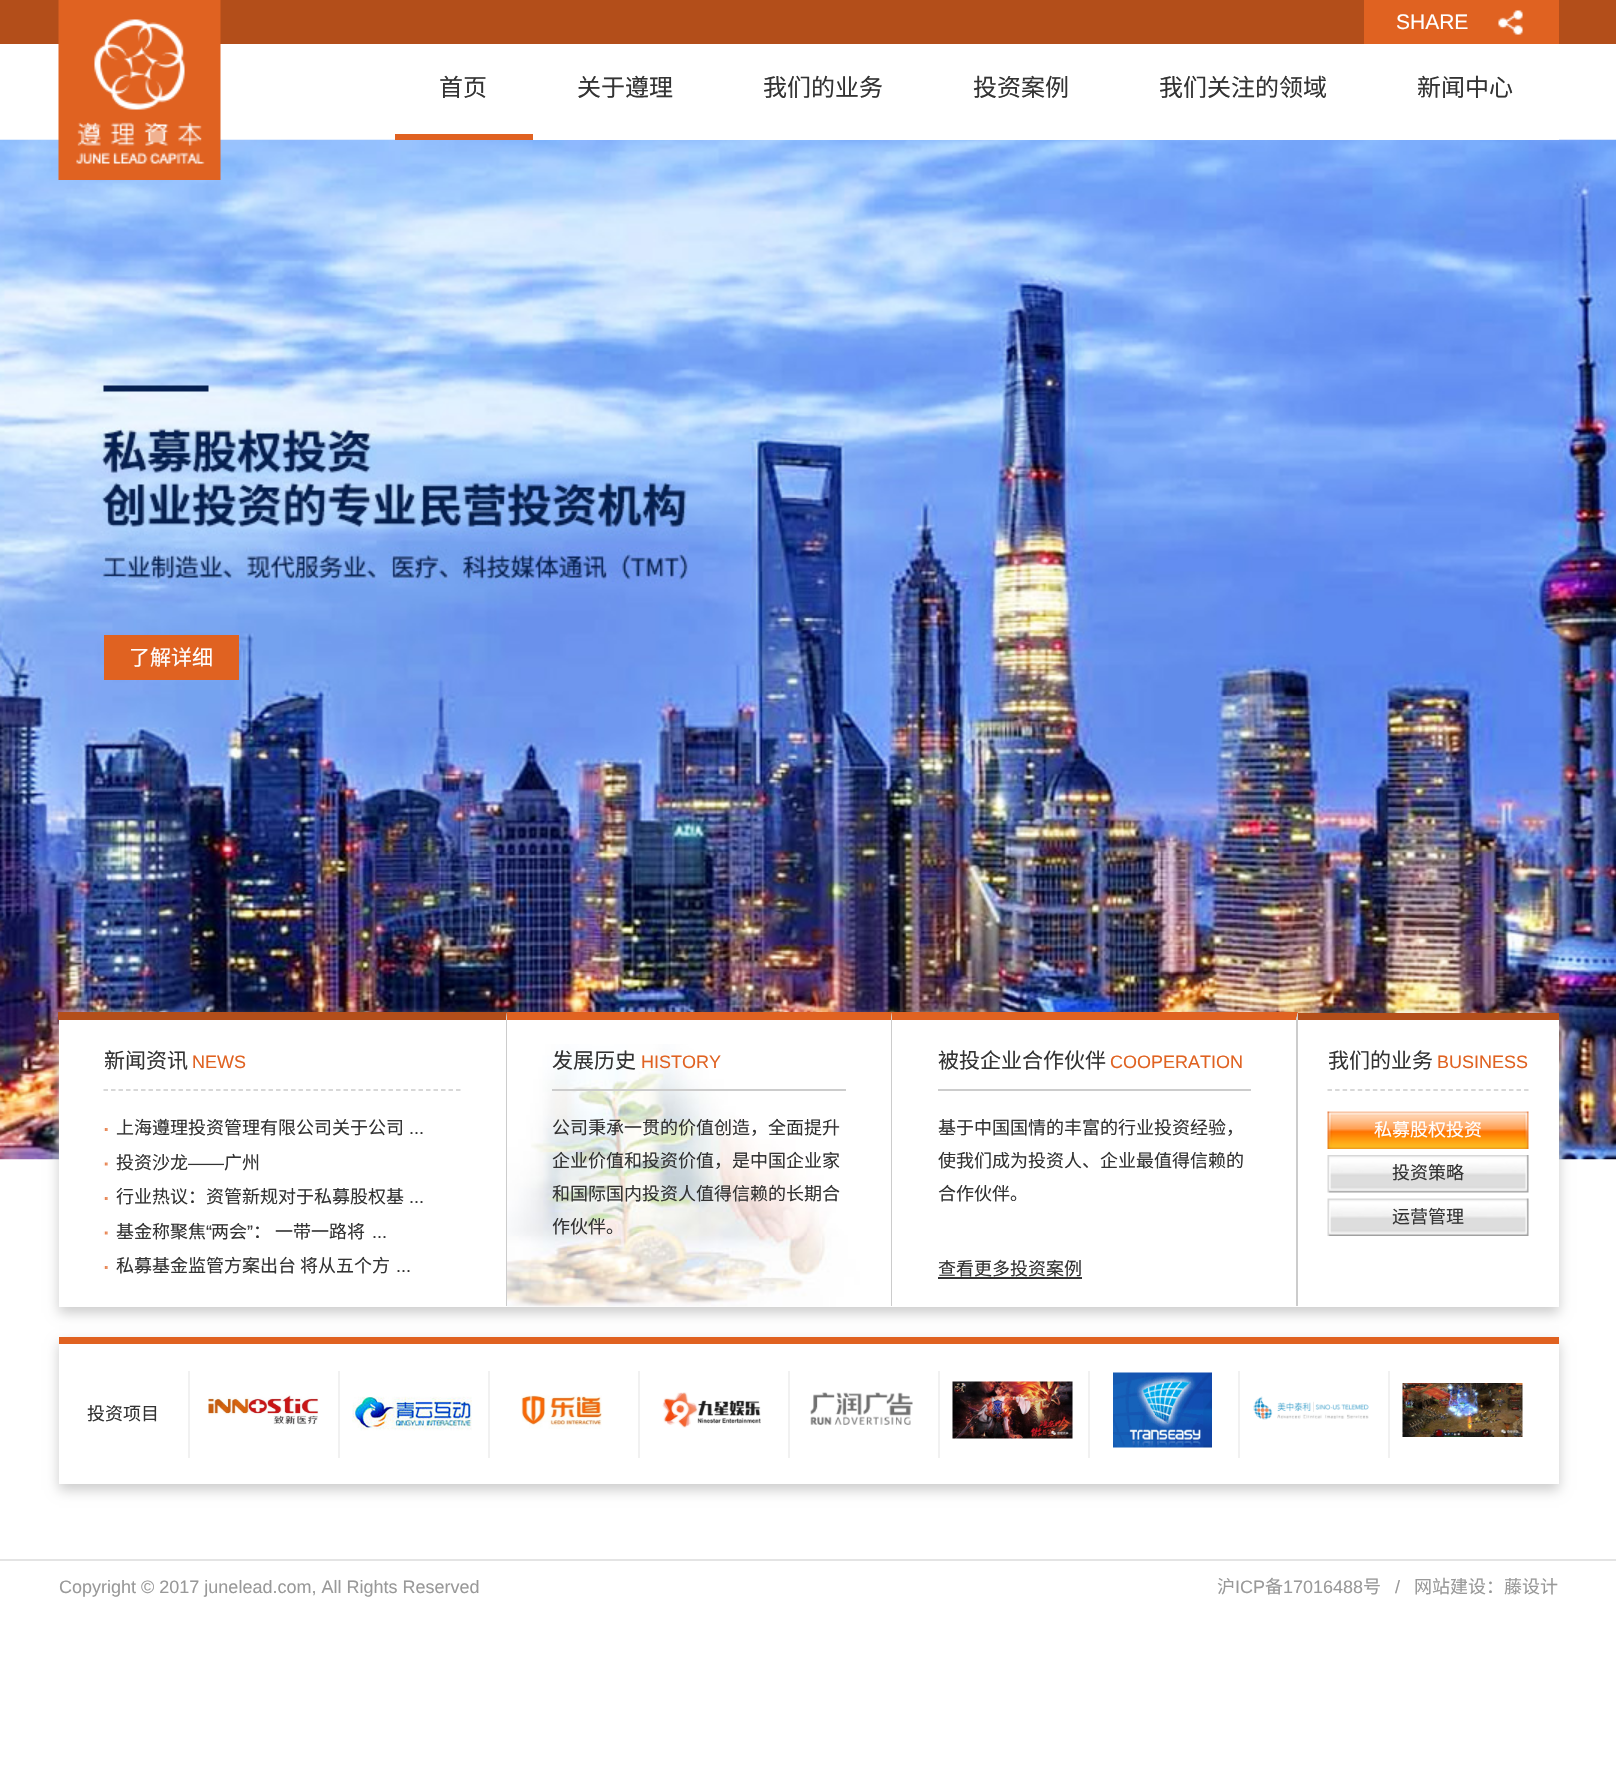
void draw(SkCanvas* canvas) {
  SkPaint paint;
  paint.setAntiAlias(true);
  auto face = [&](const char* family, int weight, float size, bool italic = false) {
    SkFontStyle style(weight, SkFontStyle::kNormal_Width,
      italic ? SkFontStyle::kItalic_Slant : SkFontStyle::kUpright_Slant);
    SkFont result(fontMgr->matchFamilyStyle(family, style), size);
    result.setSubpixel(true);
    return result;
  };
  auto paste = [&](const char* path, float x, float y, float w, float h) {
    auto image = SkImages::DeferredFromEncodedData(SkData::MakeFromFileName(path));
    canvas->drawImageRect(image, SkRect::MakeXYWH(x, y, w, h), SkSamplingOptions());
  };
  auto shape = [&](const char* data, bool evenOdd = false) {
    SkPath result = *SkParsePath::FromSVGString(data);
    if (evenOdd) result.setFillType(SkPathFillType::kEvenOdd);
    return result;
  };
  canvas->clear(0xffffffff);
  paint.setColor(0xffb34e1a);
  canvas->drawRect(SkRect::MakeXYWH(0, 0, 1616, 44), paint);
  paste("img/3.png", 0, 139, 1616, 1021);
  paste("img/1.png", 58, 0, 163, 180);
  paint.setColor(0xffe06221);
  canvas->drawRect(SkRect::MakeXYWH(1364, 0, 195, 44), paint);
  paste("img/2.png", 1498, 10, 25, 25);
  {
    const struct { float x, y, w, h; SkColor color; } items[] = {
      {395, 134, 138, 6, 0xffe06221},
      {533, 139, 1026, 1, 0xffffffff},
      {104, 635, 135, 45, 0xffe06221},
      {59, 1013, 1500, 147, 0xffffffff},
    };
    for (auto [x, y, w, h, color] : items) {
      paint.setColor(color);
      canvas->drawRect(SkRect::MakeXYWH(x, y, w, h), paint);
    }
  }
  canvas->save();
  canvas->clipPath(shape("M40 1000H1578V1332H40ZM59 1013H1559V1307H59Z", true), true);
  paint.setColor(0xffcccccc);
  paint.setMaskFilter(SkMaskFilter::MakeBlur(kNormal_SkBlurStyle, 6));
  canvas->drawRect(SkRect::MakeXYWH(59, 1019, 1500, 294), paint);
  paint.setMaskFilter(nullptr);
  canvas->restore();
  paint.setColor(0xffb34e1a);
  canvas->drawPath(shape("M58 1012H507L506 1020H58Z"), paint);
  paint.setColor(0xffcccccc);
  canvas->drawPath(shape("M507 1012V1306H506V1020Z"), paint);
  paint.setStroke(true);
  paint.setStrokeWidth(1.5f);
  paint.setPathEffect(SkDashPathEffect::Make({{4.5f, 3}}, 0));
  canvas->drawPath(shape("M103.5 1090H460.5"), paint);
  paint.setPathEffect(nullptr);
  paste("img/4.png", 103, 1128, 5, 3);
  paste("img/5.png", 103, 1162, 5, 4);
  paste("img/4.png", 103, 1197, 5, 3);
  paste("img/5.png", 103, 1231, 5, 4);
  paste("img/4.png", 103, 1266, 5, 3);
  paste("img/6.png", 507, 1044, 384, 263);
  paint.setStroke(false);
  paint.setColor(0xffe06221);
  canvas->drawPath(shape("M507 1012H892L891 1020H507Z"), paint);
  paint.setColor(0xffcccccc);
  canvas->drawPath(shape("M892 1012V1306H891V1020Z"), paint);
  canvas->drawRect(SkRect::MakeXYWH(552, 1089, 294, 2), paint);
  paint.setColor(0xffe06221);
  canvas->drawPath(shape("M892 1012H1298L1296 1020H892Z"), paint);
  paint.setColor(0xffcccccc);
  canvas->drawPath(shape("M1298 1012V1306H1296V1020Z"), paint);
  {
    const struct { float x, y, w, h; SkColor color; } items[] = {
      {938, 1089, 313, 2, 0xffcccccc},
      {938, 1277, 144, 2, 0xff333333},
      {1298, 1013, 261, 7, 0xffb34e1a},
    };
    for (auto [x, y, w, h, color] : items) {
      paint.setColor(color);
      canvas->drawRect(SkRect::MakeXYWH(x, y, w, h), paint);
    }
  }
  paint.setStroke(true);
  paint.setColor(0xffcccccc);
  paint.setPathEffect(SkDashPathEffect::Make({{4.5f, 3.06f}}, 0));
  canvas->drawPath(shape("M1327.5 1090H1528.5"), paint);
  paint.setPathEffect(nullptr);
  paste("img/7.png", 1327, 1111, 202, 38);
  paste("img/8.png", 1327, 1155, 202, 38);
  paste("img/9.png", 1327, 1198, 202, 38);
  canvas->save();
  canvas->clipPath(shape("M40 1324H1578V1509H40ZM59 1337H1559V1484H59Z", true), true);
  paint.setStroke(false);
  paint.setMaskFilter(SkMaskFilter::MakeBlur(kNormal_SkBlurStyle, 6));
  canvas->drawRect(SkRect::MakeXYWH(59, 1343, 1500, 147), paint);
  paint.setMaskFilter(nullptr);
  canvas->restore();
  paint.setColor(0xffe06221);
  canvas->drawRect(SkRect::MakeXYWH(59, 1337, 1500, 7), paint);
  paint.setColor(0xfff1f1f1);
  canvas->drawRect(SkRect::MakeXYWH(188, 1371, 2, 87), paint);
  paste("img/10.png", 208, 1395, 111, 30);
  canvas->drawRect(SkRect::MakeXYWH(338, 1371, 2, 87), paint);
  paste("img/11.png", 352, 1396, 120, 35);
  canvas->drawRect(SkRect::MakeXYWH(488, 1371, 2, 87), paint);
  paste("img/12.png", 521, 1395, 81, 34);
  canvas->drawRect(SkRect::MakeXYWH(638, 1371, 2, 87), paint);
  paste("img/13.png", 662, 1392, 99, 36);
  canvas->drawRect(SkRect::MakeXYWH(788, 1371, 2, 87), paint);
  paste("img/14.png", 810, 1392, 103, 33);
  canvas->drawRect(SkRect::MakeXYWH(938, 1371, 2, 87), paint);
  paste("img/15.png", 952, 1381, 121, 58);
  canvas->drawRect(SkRect::MakeXYWH(1088, 1371, 2, 87), paint);
  paste("img/16.png", 1113, 1372, 99, 76);
  canvas->drawRect(SkRect::MakeXYWH(1238, 1371, 2, 87), paint);
  paste("img/17.png", 1253, 1396, 116, 24);
  canvas->drawRect(SkRect::MakeXYWH(1388, 1371, 2, 87), paint);
  paste("img/18.png", 1402, 1383, 121, 54);
  paint.setColor(0xffe4e4e4);
  canvas->drawRect(SkRect::MakeXYWH(0, 1559, 1616, 2), paint);
  auto f0 = face("Liberation Sans", 400, 21);
  paint.setColor(0xffffffff);
  canvas->drawString("SHARE", 1396, 29, f0, paint);
  auto f1 = face("Noto Sans CJK SC", 400, 24);
  paint.setColor(0xff333333);
  {
    const struct { const char* s; float x, y; } items[] = {
      {"首页", 439, 96},
      {"关于遵理", 577, 96},
      {"我们的业务", 763, 96},
      {"投资案例", 973, 96},
      {"我们关注的领域", 1159, 96},
      {"新闻中心", 1417, 96},
    };
    for (auto [s, x, y] : items) {
      canvas->drawString(s, x, y, f1, paint);
    }
  }
  auto f2 = face("Noto Sans CJK SC", 400, 21);
  paint.setColor(0xffffffff);
  canvas->drawString("了解详细", 129, 665, f2, paint);
  paint.setColor(0xff333333);
  canvas->drawString("新闻资讯", 104, 1068, f2, paint);
  auto f3 = face("Liberation Sans", 400, 18);
  paint.setColor(0xffe06221);
  canvas->drawString("NEWS", 192, 1068, f3, paint);
  auto f4 = face("Noto Sans CJK SC", 400, 18);
  paint.setColor(0xff333333);
  canvas->drawString("上海遵理投资管理有限公司关于公司", 116, 1134, f4, paint);
  canvas->drawString("...", 409, 1134, f3, paint);
  canvas->drawString("投资沙龙", 116, 1169, f4, paint);
  canvas->drawString("——", 188, 1169, f3, paint);
  canvas->drawString("广州", 224, 1169, f4, paint);
  canvas->drawString("行业热议：资管新规对于私募股权基", 116, 1203, f4, paint);
  canvas->drawString("...", 409, 1203, f3, paint);
  canvas->drawString("基金称聚焦", 116, 1238, f4, paint);
  canvas->drawString("“", 206, 1238, f3, paint);
  canvas->drawString("两会", 211, 1238, f4, paint);
  canvas->drawString("”", 247, 1238, f3, paint);
  canvas->drawString("： 一带一路将", 253, 1238, f4, paint);
  canvas->drawString("...", 372, 1238, f3, paint);
  canvas->drawString("私募基金监管方案出台 将从五个方", 116, 1272, f4, paint);
  canvas->drawString("...", 396, 1272, f3, paint);
  canvas->drawString("发展历史", 552, 1068, f2, paint);
  paint.setColor(0xffe06221);
  canvas->drawString("HISTORY", 641, 1068, f3, paint);
  paint.setColor(0xff333333);
  {
    const struct { const char* s; float x, y; } items[] = {
      {"公司秉承一贯的价值创造，全面提升", 552, 1134},
      {"企业价值和投资价值，是中国企业家", 552, 1167},
      {"和国际国内投资人值得信赖的长期合", 552, 1200},
      {"作伙伴。", 552, 1233},
    };
    for (auto [s, x, y] : items) {
      canvas->drawString(s, x, y, f4, paint);
    }
  }
  canvas->drawString("被投企业合作伙伴", 938, 1068, f2, paint);
  paint.setColor(0xffe06221);
  canvas->drawString("COOPERATION", 1110, 1068, f3, paint);
  paint.setColor(0xff333333);
  {
    const struct { const char* s; float x, y; } items[] = {
      {"基于中国国情的丰富的行业投资经验，", 938, 1134},
      {"使我们成为投资人、企业最值得信赖的", 938, 1167},
      {"合作伙伴。", 938, 1200},
      {"查看更多投资案例", 938, 1275},
    };
    for (auto [s, x, y] : items) {
      canvas->drawString(s, x, y, f4, paint);
    }
  }
  canvas->drawString("我们的业务", 1328, 1068, f2, paint);
  paint.setColor(0xffe06221);
  canvas->drawString("BUSINESS", 1437, 1068, f3, paint);
  paint.setColor(0xffffffff);
  canvas->drawString("私募股权投资", 1374, 1136, f4, paint);
  paint.setColor(0xff333333);
  {
    const struct { const char* s; float x, y; } items[] = {
      {"投资策略", 1392, 1179},
      {"运营管理", 1392, 1223},
      {"投资项目", 87, 1420},
    };
    for (auto [s, x, y] : items) {
      canvas->drawString(s, x, y, f4, paint);
    }
  }
  paint.setColor(0xff999999);
  canvas->drawString("Copyright © 2017 junelead.com, All Rights Reserved", 59, 1593, f3, paint);
  canvas->drawString("沪", 1217, 1593, f4, paint);
  canvas->drawString("ICP", 1235, 1593, f3, paint);
  canvas->drawString("备", 1265, 1593, f4, paint);
  canvas->drawString("17016488", 1283, 1593, f3, paint);
  canvas->drawString("号", 1363, 1593, f4, paint);
  canvas->drawString("/", 1395, 1593, f3, paint);
  canvas->drawString("网站建设：藤设计", 1414, 1593, f4, paint);
}
